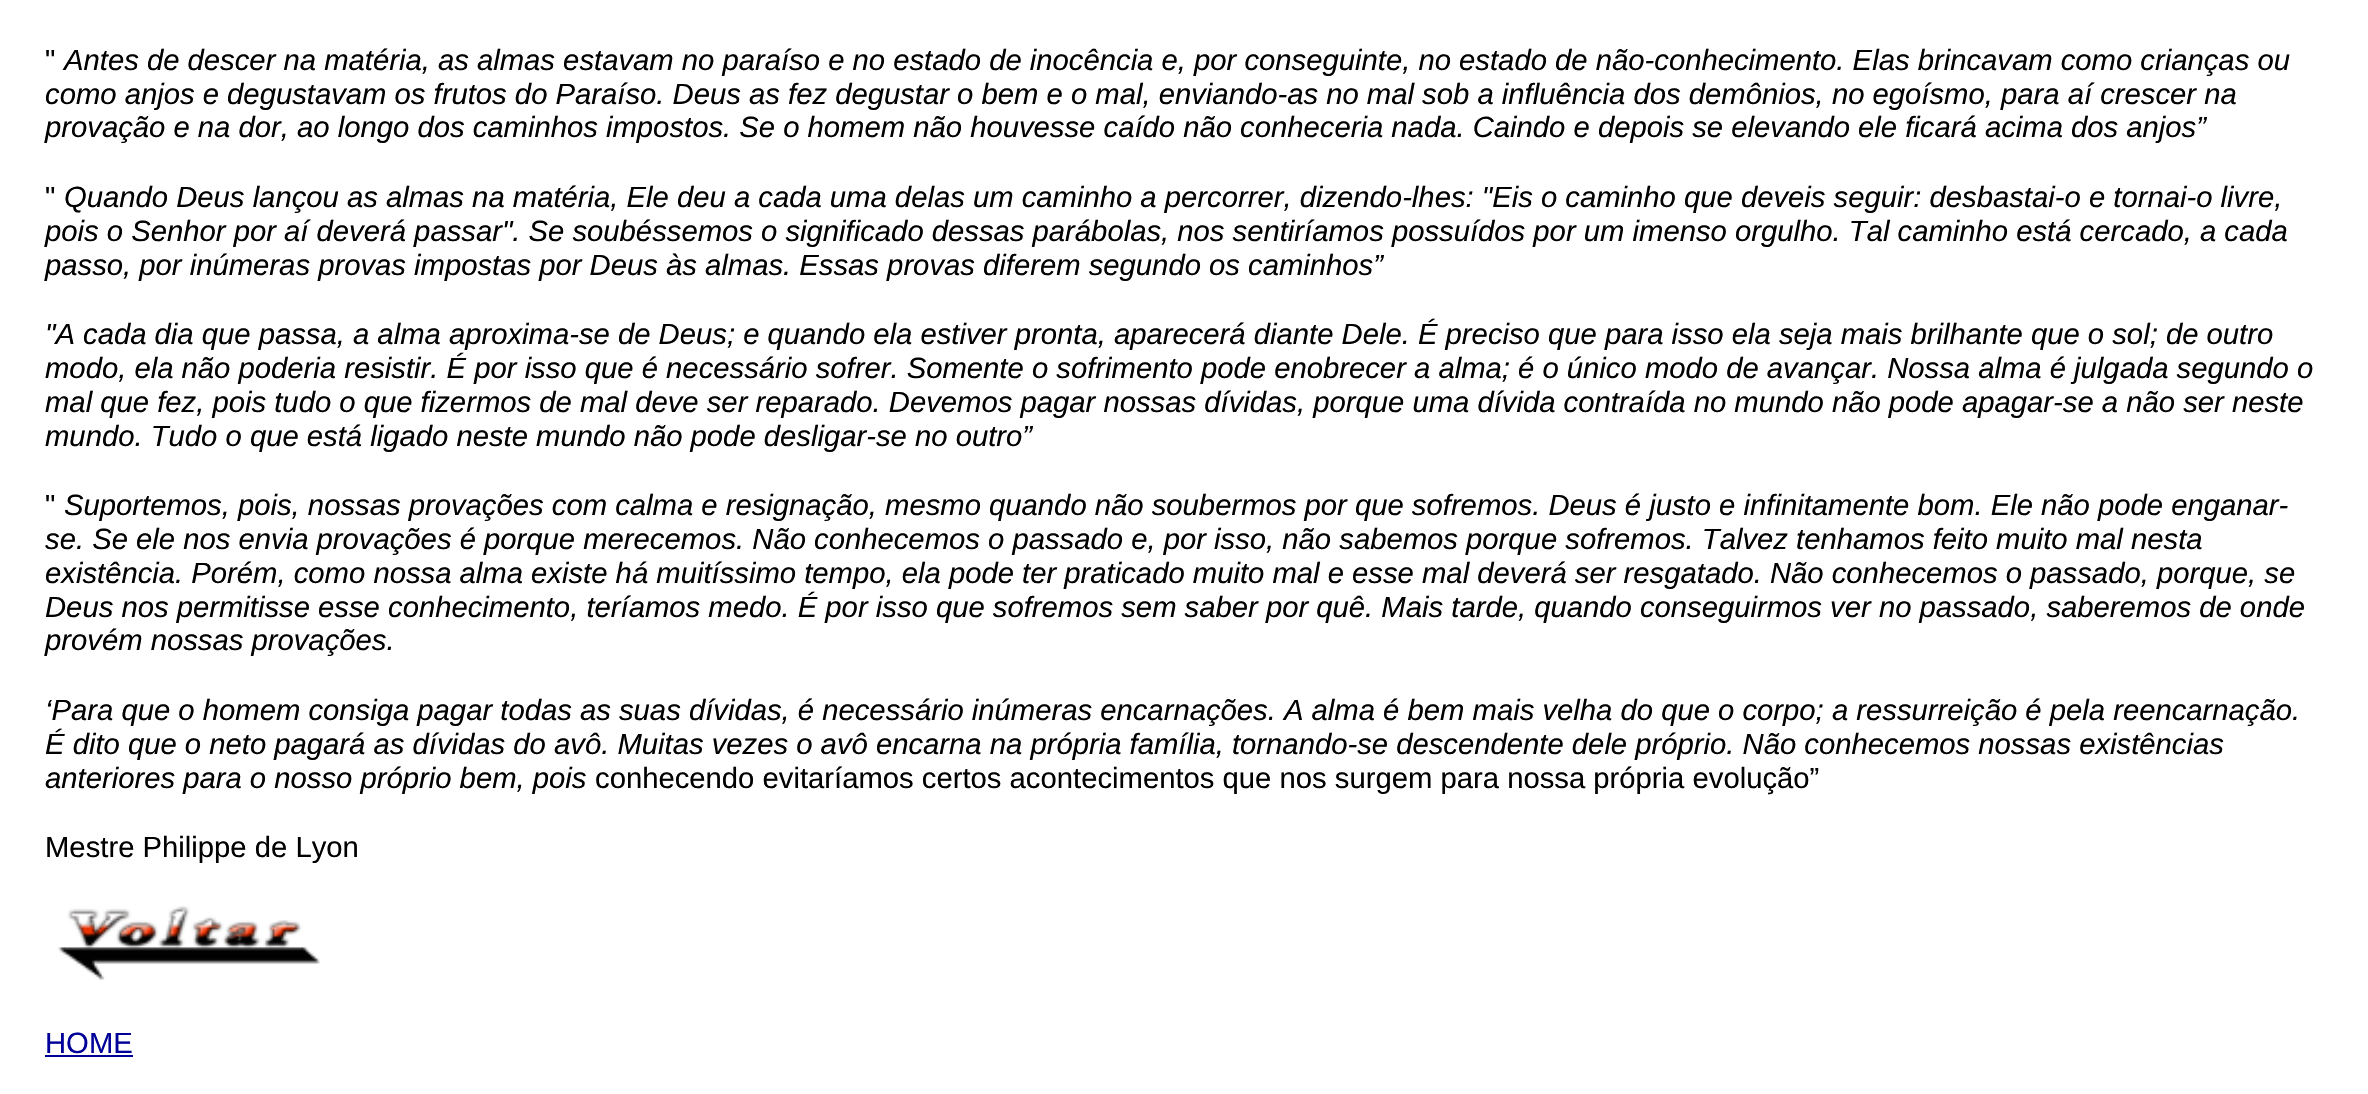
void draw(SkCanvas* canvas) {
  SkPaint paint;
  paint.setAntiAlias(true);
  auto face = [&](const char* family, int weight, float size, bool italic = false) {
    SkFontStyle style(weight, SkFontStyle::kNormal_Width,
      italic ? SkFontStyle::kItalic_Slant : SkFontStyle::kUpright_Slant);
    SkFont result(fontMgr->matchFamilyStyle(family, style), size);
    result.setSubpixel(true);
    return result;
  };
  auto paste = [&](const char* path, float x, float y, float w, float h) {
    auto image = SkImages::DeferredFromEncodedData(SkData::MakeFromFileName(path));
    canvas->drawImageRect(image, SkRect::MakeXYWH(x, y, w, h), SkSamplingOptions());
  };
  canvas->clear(0xffffffff);
  paste("img/1.png", 58, 906, 262, 74);
  paint.setColor(0xff000099);
  canvas->drawRect(SkRect::MakeXYWH(45, 1055, 88, 2), paint);
  auto f0 = face("Liberation Sans", 400, 29.25f);
  paint.setColor(0xff000000);
  canvas->drawString("\"", 45, 70, f0, paint);
  auto f1 = face("Liberation Sans", 400, 29.25f, true);
  {
    const struct { const char* s; float x, y; } items[] = {
      {"Antes de descer na matéria, as almas estavam no paraíso e no estado de inocência e, por conseguinte, no estado de não-conhecimento. Elas brincavam como crianças ou", 64, 70},
      {"como anjos e degustavam os frutos do Paraíso. Deus as fez degustar o bem e o mal, enviando-as no mal sob a influência dos demônios, no egoísmo, para aí crescer na", 45, 104},
      {"provação e na dor, ao longo dos caminhos impostos. Se o homem não houvesse caído não conheceria nada. Caindo e depois se elevando ele ficará acima dos anjos”", 45, 137},
    };
    for (auto [s, x, y] : items) {
      canvas->drawString(s, x, y, f1, paint);
    }
  }
  canvas->drawString("\"", 45, 207, f0, paint);
  {
    const struct { const char* s; float x, y; } items[] = {
      {"Quando Deus lançou as almas na matéria, Ele deu a cada uma delas um caminho a percorrer, dizendo-lhes: \"Eis o caminho que deveis seguir: desbastai-o e tornai-o livre,", 64, 207},
      {"pois o Senhor por aí deverá passar\". Se soubéssemos o significado dessas parábolas, nos sentiríamos possuídos por um imenso orgulho. Tal caminho está cercado, a cada", 45, 241},
      {"passo, por inúmeras provas impostas por Deus às almas. Essas provas diferem segundo os caminhos”", 45, 275},
      {"\"A cada dia que passa, a alma aproxima-se de Deus; e quando ela estiver pronta, aparecerá diante Dele. É preciso que para isso ela seja mais brilhante que o sol; de outro", 45, 344},
      {"modo, ela não poderia resistir. É por isso que é necessário sofrer. Somente o sofrimento pode enobrecer a alma; é o único modo de avançar. Nossa alma é julgada segundo o", 45, 378},
      {"mal que fez, pois tudo o que fizermos de mal deve ser reparado. Devemos pagar nossas dívidas, porque uma dívida contraída no mundo não pode apagar-se a não ser neste", 45, 412},
      {"mundo. Tudo o que está ligado neste mundo não pode desligar-se no outro”", 45, 446},
    };
    for (auto [s, x, y] : items) {
      canvas->drawString(s, x, y, f1, paint);
    }
  }
  canvas->drawString("\"", 45, 515, f0, paint);
  {
    const struct { const char* s; float x, y; } items[] = {
      {"Suportemos, pois, nossas provações com calma e resignação, mesmo quando não soubermos por que sofremos. Deus é justo e infinitamente bom. Ele não pode enganar-", 64, 515},
      {"se. Se ele nos envia provações é porque merecemos. Não conhecemos o passado e, por isso, não sabemos porque sofremos. Talvez tenhamos feito muito mal nesta", 45, 549},
      {"existência. Porém, como nossa alma existe há muitíssimo tempo, ela pode ter praticado muito mal e esse mal deverá ser resgatado. Não conhecemos o passado, porque, se", 45, 583},
      {"Deus nos permitisse esse conhecimento, teríamos medo. É por isso que sofremos sem saber por quê. Mais tarde, quando conseguirmos ver no passado, saberemos de onde", 45, 617},
      {"provém nossas provações.", 45, 650},
      {"‘Para que o homem consiga pagar todas as suas dívidas, é necessário inúmeras encarnações. A alma é bem mais velha do que o corpo; a ressurreição é pela reencarnação.", 45, 720},
      {"É dito que o neto pagará as dívidas do avô. Muitas vezes o avô encarna na própria família, tornando-se descendente dele próprio. Não conhecemos nossas existências", 45, 754},
      {"anteriores para o nosso próprio bem, pois", 45, 788},
    };
    for (auto [s, x, y] : items) {
      canvas->drawString(s, x, y, f1, paint);
    }
  }
  canvas->drawString("conhecendo evitaríamos certos acontecimentos que nos surgem para nossa própria evolução”", 595, 788, f0, paint);
  canvas->drawString("Mestre Philippe de Lyon", 45, 857, f0, paint);
  paint.setColor(0xff000099);
  canvas->drawString("HOME", 45, 1053, f0, paint);
}
